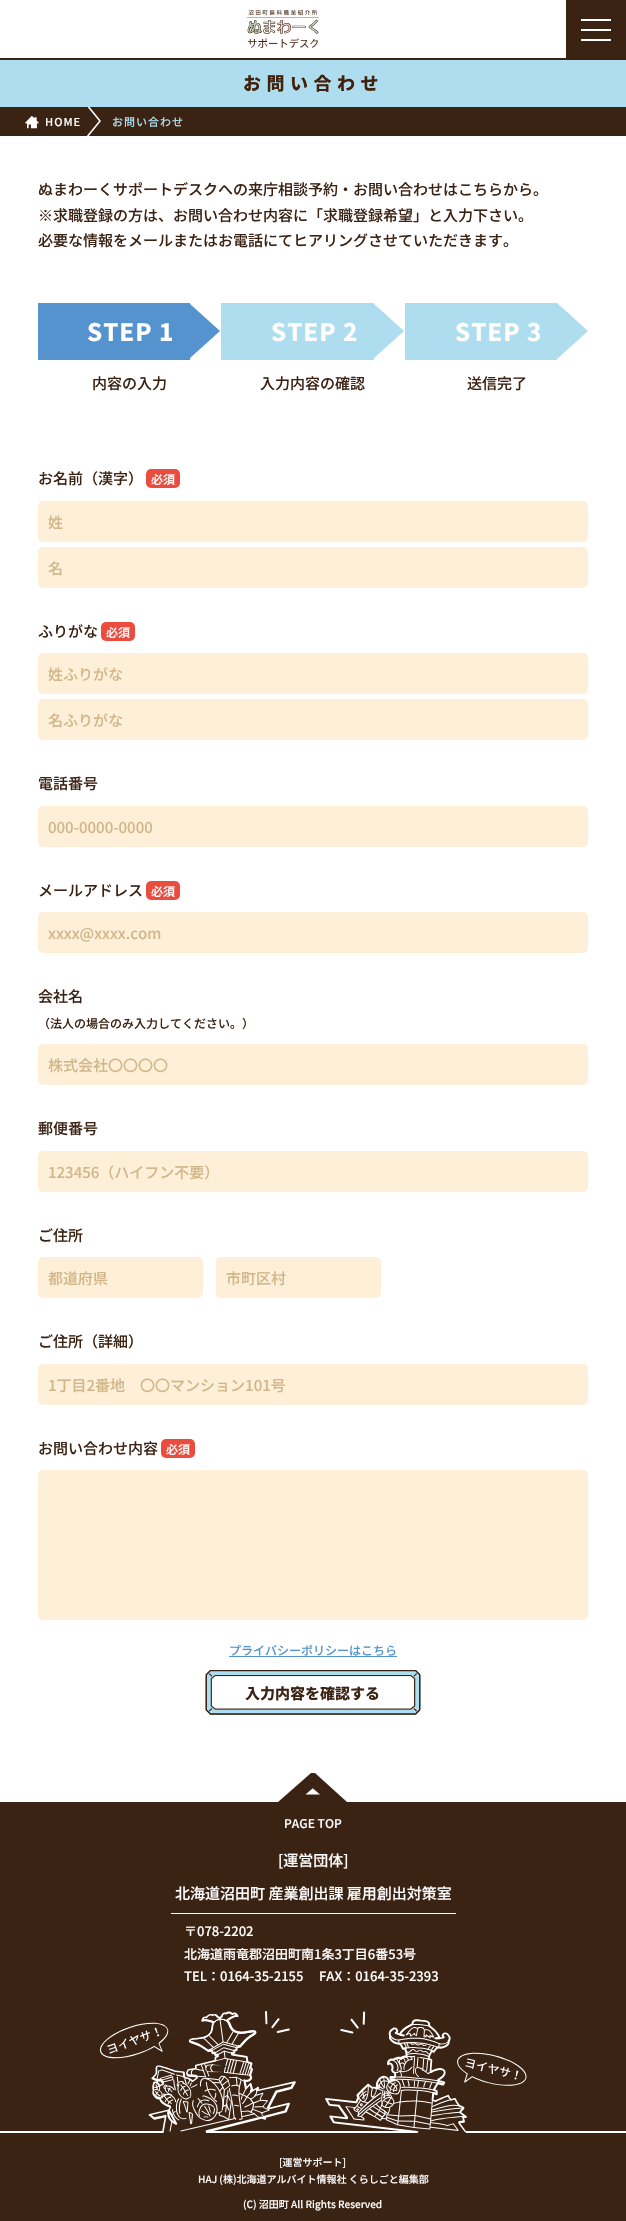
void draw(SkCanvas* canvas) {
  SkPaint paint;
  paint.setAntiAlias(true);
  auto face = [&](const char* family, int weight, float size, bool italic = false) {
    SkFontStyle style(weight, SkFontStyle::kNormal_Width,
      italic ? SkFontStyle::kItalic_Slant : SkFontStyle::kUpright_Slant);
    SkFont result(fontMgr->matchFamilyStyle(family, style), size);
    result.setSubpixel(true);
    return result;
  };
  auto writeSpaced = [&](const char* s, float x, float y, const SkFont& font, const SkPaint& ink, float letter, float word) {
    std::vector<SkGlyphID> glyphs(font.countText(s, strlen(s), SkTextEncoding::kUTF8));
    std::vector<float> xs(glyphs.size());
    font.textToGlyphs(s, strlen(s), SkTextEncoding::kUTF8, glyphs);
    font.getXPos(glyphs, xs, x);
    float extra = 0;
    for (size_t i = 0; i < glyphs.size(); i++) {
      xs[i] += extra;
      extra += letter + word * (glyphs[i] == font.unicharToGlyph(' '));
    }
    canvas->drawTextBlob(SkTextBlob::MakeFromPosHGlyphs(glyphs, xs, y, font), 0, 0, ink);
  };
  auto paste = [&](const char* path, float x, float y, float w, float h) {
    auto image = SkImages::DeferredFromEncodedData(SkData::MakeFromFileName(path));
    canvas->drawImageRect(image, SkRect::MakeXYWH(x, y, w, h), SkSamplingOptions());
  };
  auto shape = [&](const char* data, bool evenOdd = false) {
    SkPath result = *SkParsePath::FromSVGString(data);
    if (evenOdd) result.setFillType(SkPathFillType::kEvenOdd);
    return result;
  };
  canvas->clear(0xffffffff);
  paint.setColor(0xff3b2314);
  canvas->drawRect(SkRect::MakeXYWH(0, 58, 566, 2), paint);
  paste("img/1.png", 247, 10, 72, 38);
  {
    const struct { float x, y, w, h; SkColor color; } items[] = {
      {566, 0, 60, 60, 0xff3b2314},
      {581, 19, 30, 2, 0xffffffff},
      {581, 39, 30, 2, 0xffffffff},
      {581, 29, 30, 2, 0xffffffff},
      {0, 60, 626, 47, 0xffaeddef},
      {0, 107, 626, 29, 0xff3b2314},
    };
    for (auto [x, y, w, h, color] : items) {
      paint.setColor(color);
      canvas->drawRect(SkRect::MakeXYWH(x, y, w, h), paint);
    }
  }
  canvas->save();
  canvas->clipRect(SkRect::MakeXYWH(25, 107, 76, 29));
  paint.setColor(0xffffffff);
  canvas->drawPath(shape("M79 148V94L101 121Z"), paint);
  paint.setColor(0xff3b2314);
  canvas->drawPath(shape("M77 148V94L99 121Z"), paint);
  canvas->restore();
  paste("img/2.png", 25, 116, 14, 13);
  paint.setColor(0xff5593cf);
  canvas->drawRect(SkRect::MakeXYWH(38, 303, 152, 57), paint);
  canvas->drawPath(shape("M189 359V303L220 331Z"), paint);
  paint.setColor(0xffaeddef);
  canvas->drawRect(SkRect::MakeXYWH(221, 303, 153, 57), paint);
  canvas->drawPath(shape("M373 359V303L404 331Z"), paint);
  canvas->drawRect(SkRect::MakeXYWH(405, 303, 152, 57), paint);
  canvas->drawPath(shape("M557 359V303L588 331Z"), paint);
  paint.setColor(0xffe94d40);
  canvas->drawRoundRect(SkRect::MakeXYWH(146, 469, 34, 19), 5, 5, paint);
  paint.setColor(0xfffef0d8);
  canvas->drawRoundRect(SkRect::MakeXYWH(38, 501, 550, 41), 5, 5, paint);
  canvas->drawRoundRect(SkRect::MakeXYWH(38, 547, 550, 41), 5, 5, paint);
  paint.setColor(0xffe94d40);
  canvas->drawRoundRect(SkRect::MakeXYWH(101, 622, 34, 19), 5, 5, paint);
  paint.setColor(0xfffef0d8);
  canvas->drawRoundRect(SkRect::MakeXYWH(38, 653, 550, 41), 5, 5, paint);
  canvas->drawRoundRect(SkRect::MakeXYWH(38, 699, 550, 41), 5, 5, paint);
  canvas->drawRoundRect(SkRect::MakeXYWH(38, 806, 550, 41), 5, 5, paint);
  paint.setColor(0xffe94d40);
  canvas->drawRoundRect(SkRect::MakeXYWH(146, 881, 34, 19), 5, 5, paint);
  paint.setColor(0xfffef0d8);
  canvas->drawRoundRect(SkRect::MakeXYWH(38, 912, 550, 41), 5, 5, paint);
  canvas->drawRoundRect(SkRect::MakeXYWH(38, 1044, 550, 41), 5, 5, paint);
  canvas->drawRoundRect(SkRect::MakeXYWH(38, 1151, 550, 41), 5, 5, paint);
  canvas->drawRoundRect(SkRect::MakeXYWH(38, 1257, 165, 41), 5, 5, paint);
  canvas->drawRoundRect(SkRect::MakeXYWH(216, 1257, 165, 41), 5, 5, paint);
  canvas->drawRoundRect(SkRect::MakeXYWH(38, 1364, 550, 41), 5, 5, paint);
  paint.setColor(0xffe94d40);
  canvas->drawRoundRect(SkRect::MakeXYWH(161, 1439, 34, 19), 5, 5, paint);
  paint.setColor(0xfffef0d8);
  canvas->drawRoundRect(SkRect::MakeXYWH(38, 1470, 550, 150), 5, 5, paint);
  paint.setColor(0xff5593cf);
  canvas->drawRect(SkRect::MakeXYWH(229, 1656, 168, 1), paint);
  paint.setColor(0xffaeddef);
  canvas->drawRoundRect(SkRect::MakeXYWH(205, 1670, 216, 45), 9, 9, paint);
  paste("img/3.png", 205, 1670, 216, 45);
  paint.setColor(0xff3b2314);
  canvas->drawRect(SkRect::MakeXYWH(0, 1802, 626, 419), paint);
  canvas->drawPath(shape("M311 1773L278 1802H347L315 1773Z"), paint);
  paint.setColor(0xffffffff);
  canvas->drawPath(shape("M312.5 1788.5L305.5 1794.5H320L313 1788.5Z"), paint);
  canvas->drawRect(SkRect::MakeXYWH(171, 1913, 285, 1), paint);
  canvas->drawRect(SkRect::MakeXYWH(0, 2131, 626, 2), paint);
  paste("img/4.png", 100, 2011, 427, 122);
  auto f0 = face("Noto Sans JP", 800, 18);
  paint.setColor(0xff42210b);
  writeSpaced("お問い合わせ", 243, 90, f0, paint, 5.5f, 0);
  auto f1 = face("Noto Sans JP", 500, 11);
  paint.setColor(0xffffffff);
  writeSpaced("HOME", 45, 126, f1, paint, 1, 0);
  paint.setColor(0xffaeddef);
  writeSpaced("お問い合わせ", 112, 126, f1, paint, 1, 0);
  auto f2 = face("Noto Sans JP", 500, 15);
  paint.setColor(0xff3b2314);
  {
    const struct { const char* s; float x, y; } items[] = {
      {"ぬまわーくサポートデスクへの来庁相談予約・お問い合わせはこちらから。", 38, 195},
      {"※求職登録の方は、お問い合わせ内容に「求職登録希望」と入力下さい。", 38, 221},
      {"必要な情報をメールまたはお電話にてヒアリングさせていただきます。", 38, 246},
    };
    for (auto [s, x, y] : items) {
      canvas->drawString(s, x, y, f2, paint);
    }
  }
  auto f3 = face("Noto Sans JP", 800, 24);
  paint.setColor(0xffffffff);
  writeSpaced("STEP 1", 87, 341, f3, paint, 1, 0);
  paint.setColor(0xff3b2314);
  canvas->drawString("内容の入力", 92, 389, f2, paint);
  paint.setColor(0xffffffff);
  writeSpaced("STEP 2", 271, 341, f3, paint, 1, 0);
  paint.setColor(0xff3b2314);
  canvas->drawString("入力内容の確認", 260, 389, f2, paint);
  paint.setColor(0xffffffff);
  writeSpaced("STEP 3", 455, 341, f3, paint, 1, 0);
  paint.setColor(0xff3b2314);
  canvas->drawString("送信完了", 467, 389, f2, paint);
  canvas->drawString("お名前（漢字）", 38, 484, f2, paint);
  auto f4 = face("Noto Sans JP", 500, 12);
  paint.setColor(0xffffffff);
  canvas->drawString("必須", 151, 484, f4, paint);
  paint.setColor(0xffd2b688);
  canvas->drawString("姓", 48, 528, f2, paint);
  canvas->drawString("名", 48, 574, f2, paint);
  paint.setColor(0xff3b2314);
  canvas->drawString("ふりがな", 38, 637, f2, paint);
  paint.setColor(0xffffffff);
  canvas->drawString("必須", 106, 637, f4, paint);
  paint.setColor(0xffd2b688);
  canvas->drawString("姓ふりがな", 48, 680, f2, paint);
  canvas->drawString("名ふりがな", 48, 726, f2, paint);
  paint.setColor(0xff3b2314);
  canvas->drawString("電話番号", 38, 789, f2, paint);
  paint.setColor(0xffd2b688);
  canvas->drawString("000-0000-0000", 48, 833, f2, paint);
  paint.setColor(0xff3b2314);
  canvas->drawString("メールアドレス", 38, 896, f2, paint);
  paint.setColor(0xffffffff);
  canvas->drawString("必須", 151, 896, f4, paint);
  paint.setColor(0xffd2b688);
  canvas->drawString("xxxx@xxxx.com", 48, 939, f2, paint);
  paint.setColor(0xff3b2314);
  canvas->drawString("会社名", 38, 1002, f2, paint);
  canvas->drawString("（法人の場合のみ入力してください。）", 38, 1028, f4, paint);
  paint.setColor(0xffd2b688);
  canvas->drawString("株式会社〇〇〇〇", 48, 1071, f2, paint);
  paint.setColor(0xff3b2314);
  canvas->drawString("郵便番号", 38, 1134, f2, paint);
  paint.setColor(0xffd2b688);
  canvas->drawString("123456（ハイフン不要）", 48, 1178, f2, paint);
  paint.setColor(0xff3b2314);
  canvas->drawString("ご住所", 38, 1241, f2, paint);
  paint.setColor(0xffd2b688);
  canvas->drawString("都道府県", 48, 1284, f2, paint);
  canvas->drawString("市町区村", 226, 1284, f2, paint);
  paint.setColor(0xff3b2314);
  canvas->drawString("ご住所（詳細）", 38, 1347, f2, paint);
  paint.setColor(0xffd2b688);
  canvas->drawString("1丁目2番地　〇〇マンション101号", 48, 1391, f2, paint);
  paint.setColor(0xff3b2314);
  canvas->drawString("お問い合わせ内容", 38, 1454, f2, paint);
  paint.setColor(0xffffffff);
  canvas->drawString("必須", 166, 1454, f4, paint);
  paint.setColor(0xff5593cf);
  canvas->drawString("プライバシーポリシーはこちら", 229, 1655, f4, paint);
  auto f5 = face("Noto Sans JP", 800, 15);
  paint.setColor(0xff3b2314);
  canvas->drawString("入力内容を確認する", 245, 1699, f5, paint);
  paint.setColor(0xffffffff);
  canvas->drawString("PAGE TOP", 284, 1828, f4, paint);
  canvas->drawString("[運営団体]", 278, 1866, f2, paint);
  canvas->drawString("北海道沼田町 産業創出課 雇用創出対策室", 175, 1899, f2, paint);
  auto f6 = face("Noto Sans JP", 500, 13);
  {
    const struct { const char* s; float x, y; } items[] = {
      {"〒078-2202", 184, 1936},
      {"北海道雨竜郡沼田町南1条3丁目6番53号", 184, 1959},
      {"TEL：0164-35-2155", 184, 1981},
      {"FAX：0164-35-2393", 319, 1981},
    };
    for (auto [s, x, y] : items) {
      canvas->drawString(s, x, y, f6, paint);
    }
  }
  auto f7 = face("Noto Sans JP", 500, 10);
  {
    const struct { const char* s; float x, y; } items[] = {
      {"[運営サポート]", 279, 2166},
      {"HAJ (株)北海道アルバイト情報社 くらしごと編集部", 198, 2183},
      {"(C) 沼田町 All Rights Reserved", 243, 2208},
    };
    for (auto [s, x, y] : items) {
      canvas->drawString(s, x, y, f7, paint);
    }
  }
}
